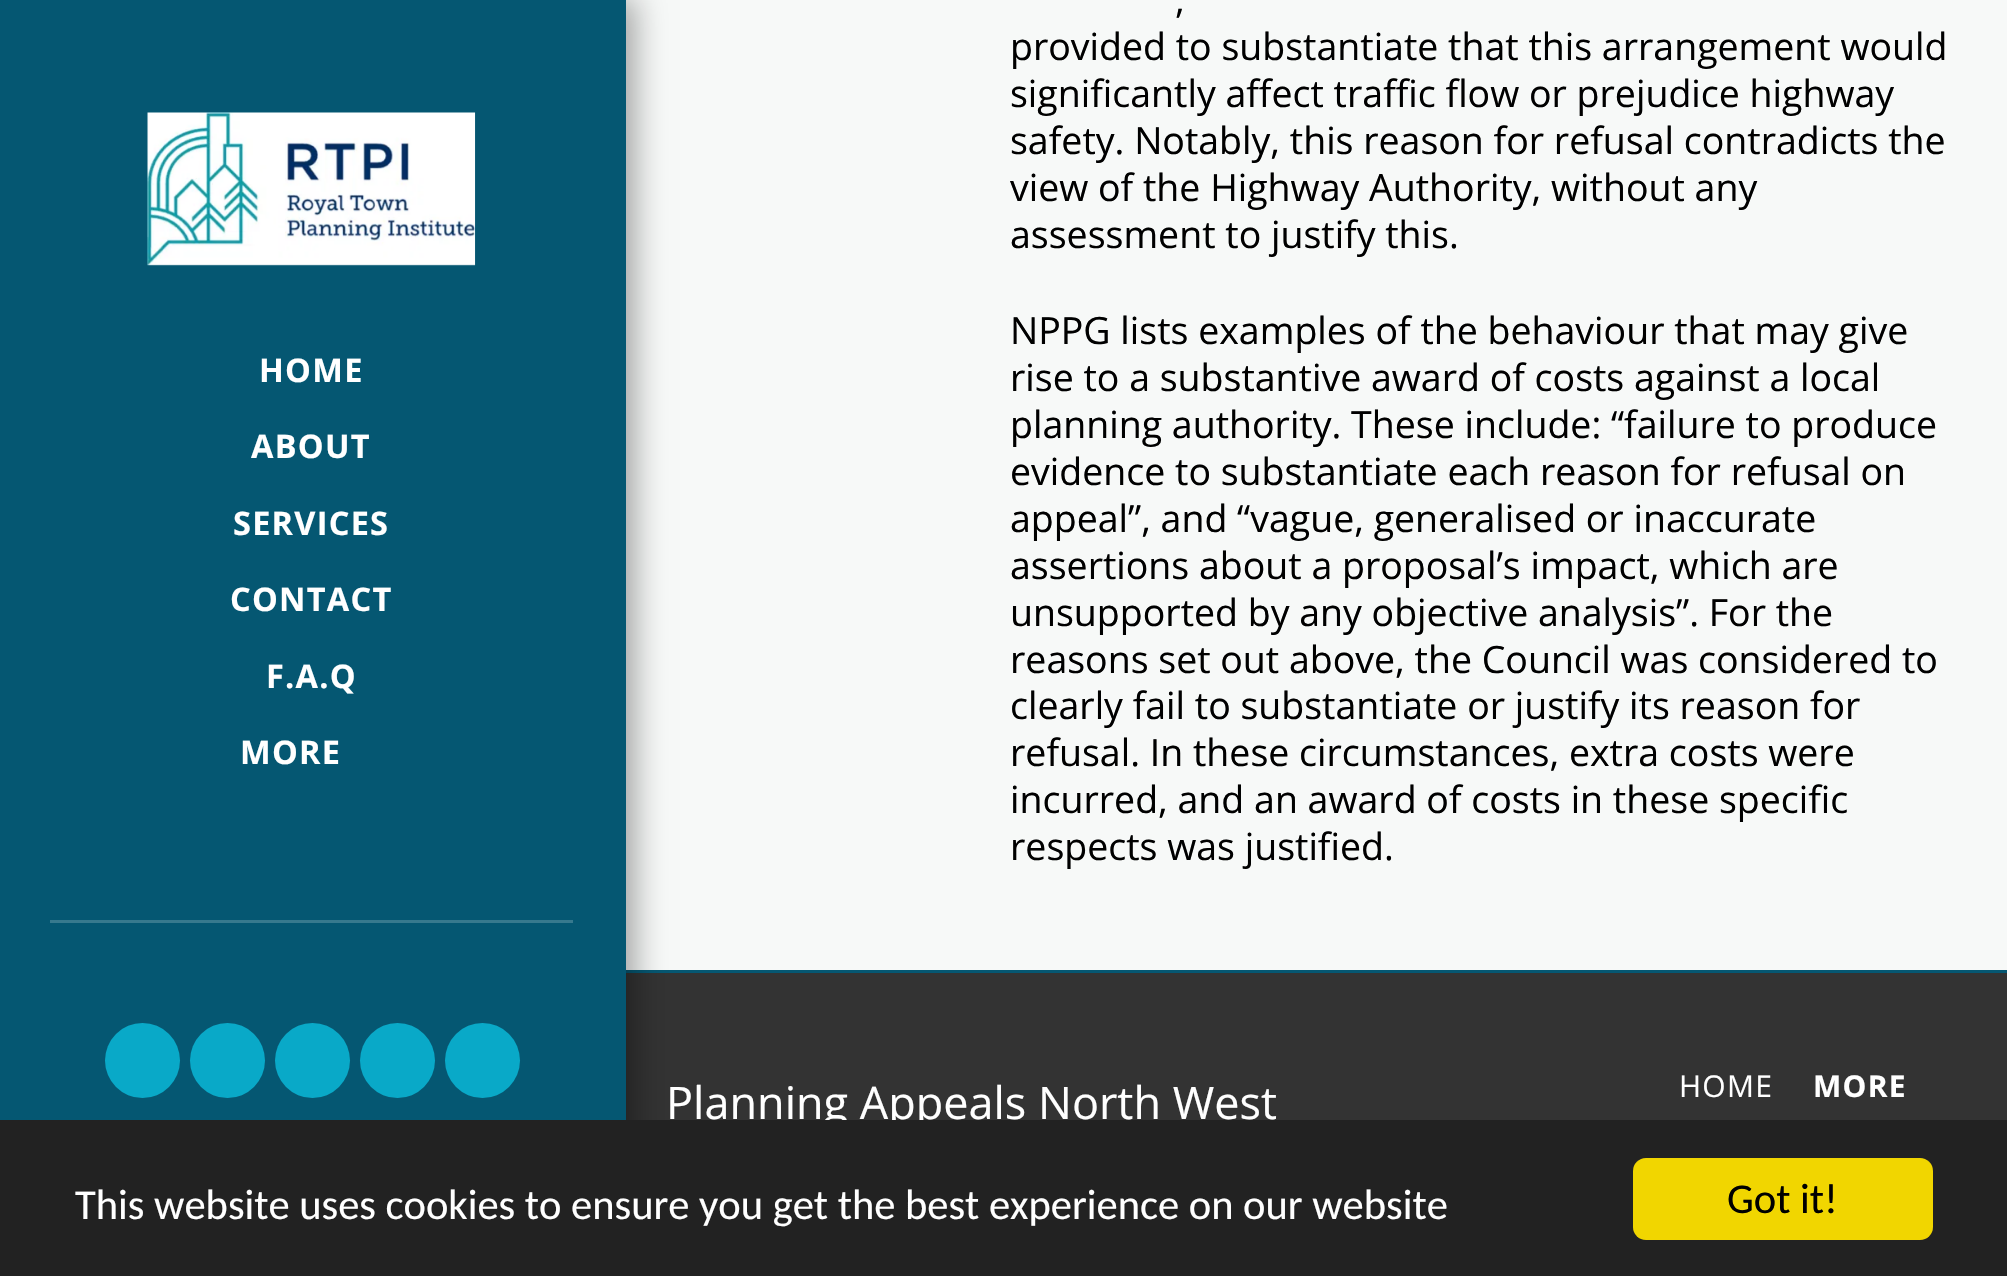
void draw(SkCanvas* canvas) {
  SkPaint paint;
  paint.setAntiAlias(true);
  auto face = [&](const char* family, int weight, float size, bool italic = false) {
    SkFontStyle style(weight, SkFontStyle::kNormal_Width,
      italic ? SkFontStyle::kItalic_Slant : SkFontStyle::kUpright_Slant);
    SkFont result(fontMgr->matchFamilyStyle(family, style), size);
    result.setSubpixel(true);
    return result;
  };
  auto writeSpaced = [&](const char* s, float x, float y, const SkFont& font, const SkPaint& ink, float letter, float word) {
    std::vector<SkGlyphID> glyphs(font.countText(s, strlen(s), SkTextEncoding::kUTF8));
    std::vector<float> xs(glyphs.size());
    font.textToGlyphs(s, strlen(s), SkTextEncoding::kUTF8, glyphs);
    font.getXPos(glyphs, xs, x);
    float extra = 0;
    for (size_t i = 0; i < glyphs.size(); i++) {
      xs[i] += extra;
      extra += letter + word * (glyphs[i] == font.unicharToGlyph(' '));
    }
    canvas->drawTextBlob(SkTextBlob::MakeFromPosHGlyphs(glyphs, xs, y, font), 0, 0, ink);
  };
  auto paste = [&](const char* path, float x, float y, float w, float h) {
    auto image = SkImages::DeferredFromEncodedData(SkData::MakeFromFileName(path));
    canvas->drawImageRect(image, SkRect::MakeXYWH(x, y, w, h), SkSamplingOptions());
  };
  canvas->clear(0xfff7f9f8);
  paint.setColor(0xff333333);
  canvas->drawRect(SkRect::MakeXYWH(626, 973, 1381, 147), paint);
  paint.setColor(0xff055772);
  canvas->drawRect(SkRect::MakeXYWH(625, 970, 1382, 3), paint);
  paint.setColor(0x59000000);
  paint.setMaskFilter(SkMaskFilter::MakeBlur(kNormal_SkBlurStyle, 15));
  canvas->drawRect(SkRect::MakeXYWH(0, -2, 635, 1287), paint);
  paint.setMaskFilter(nullptr);
  paint.setColor(0xff055772);
  canvas->drawRect(SkRect::MakeXYWH(0, 0, 626, 1120), paint);
  paste("img/1.png", 147, 112, 329, 154);
  paint.setColor(0xff37798e);
  canvas->drawRect(SkRect::MakeXYWH(50, 920, 523, 3), paint);
  paint.setColor(0xff09a9c8);
  canvas->drawCircle(142.5f, 1060.5f, 37.5f, paint);
  canvas->drawCircle(227.5f, 1060.5f, 37.5f, paint);
  canvas->drawCircle(312.5f, 1060.5f, 37.5f, paint);
  canvas->drawCircle(397.5f, 1060.5f, 37.5f, paint);
  canvas->drawCircle(482.5f, 1060.5f, 37.5f, paint);
  auto f0 = face("Open Sans", 700, 32.5f);
  paint.setColor(0xffffffff);
  {
    const struct { const char* s; float x, y; } items[] = {
      {"HOME", 259, 382},
      {"ABOUT", 251, 458},
      {"SERVICES", 233, 535},
      {"CONTACT", 230, 611},
      {"F.A.Q", 266, 688},
      {"MORE", 240, 764},
    };
    for (auto [s, x, y] : items) {
      writeSpaced(s, x, y, f0, paint, 1.25f, 0);
    }
  }
  auto f1 = face("Open Sans", 400, 37.5f);
  paint.setColor(0xff000000);
  {
    const struct { const char* s; float x, y; } items[] = {
      {",", 1175, 13},
      {"provided to substantiate that this arrangement would", 1010, 60},
      {"significantly affect traffic flow or prejudice highway", 1010, 107},
      {"safety. Notably, this reason for refusal contradicts the", 1010, 154},
      {"view of the Highway Authority, without any", 1010, 201},
      {"assessment to justify this.", 1010, 248},
      {"NPPG lists examples of the behaviour that may give", 1010, 344},
      {"rise to a substantive award of costs against a local", 1010, 391},
      {"planning authority. These include: “failure to produce", 1010, 438},
      {"evidence to substantiate each reason for refusal on", 1010, 485},
      {"appeal”, and “vague, generalised or inaccurate", 1010, 532},
      {"assertions about a proposal’s impact, which are", 1010, 579},
      {"unsupported by any objective analysis”. For the", 1010, 626},
      {"reasons set out above, the Council was considered to", 1010, 673},
      {"clearly fail to substantiate or justify its reason for", 1010, 719},
      {"refusal. In these circumstances, extra costs were", 1010, 766},
      {"incurred, and an award of costs in these specific", 1010, 813},
      {"respects was justified.", 1010, 860},
    };
    for (auto [s, x, y] : items) {
      canvas->drawString(s, x, y, f1, paint);
    }
  }
  auto f2 = face("Open Sans", 400, 45);
  paint.setColor(0xffffffff);
  canvas->drawString("Planning Appeals North West", 666, 1119, f2, paint);
  auto f3 = face("Open Sans", 400, 30);
  writeSpaced("HOME", 1679, 1097, f3, paint, 1.25f, 0);
  auto f4 = face("Open Sans", 700, 30);
  writeSpaced("MORE", 1813, 1097, f4, paint, 1.25f, 0);
  paint.setColor(0xff222222);
  canvas->drawRect(SkRect::MakeXYWH(0, 1120, 2007, 156), paint);
  auto f5 = face("Carlito", 400, 42.5f);
  paint.setColor(0xffffffff);
  canvas->drawString("This website uses cookies to ensure you get the best experience on our website", 75, 1219, f5, paint);
  paint.setColor(0xfff1d600);
  canvas->drawRoundRect(SkRect::MakeXYWH(1633, 1158, 300, 82), 13, 13, paint);
  paint.setColor(0xff000000);
  canvas->drawString("Got it!", 1727, 1213, f5, paint);
}
